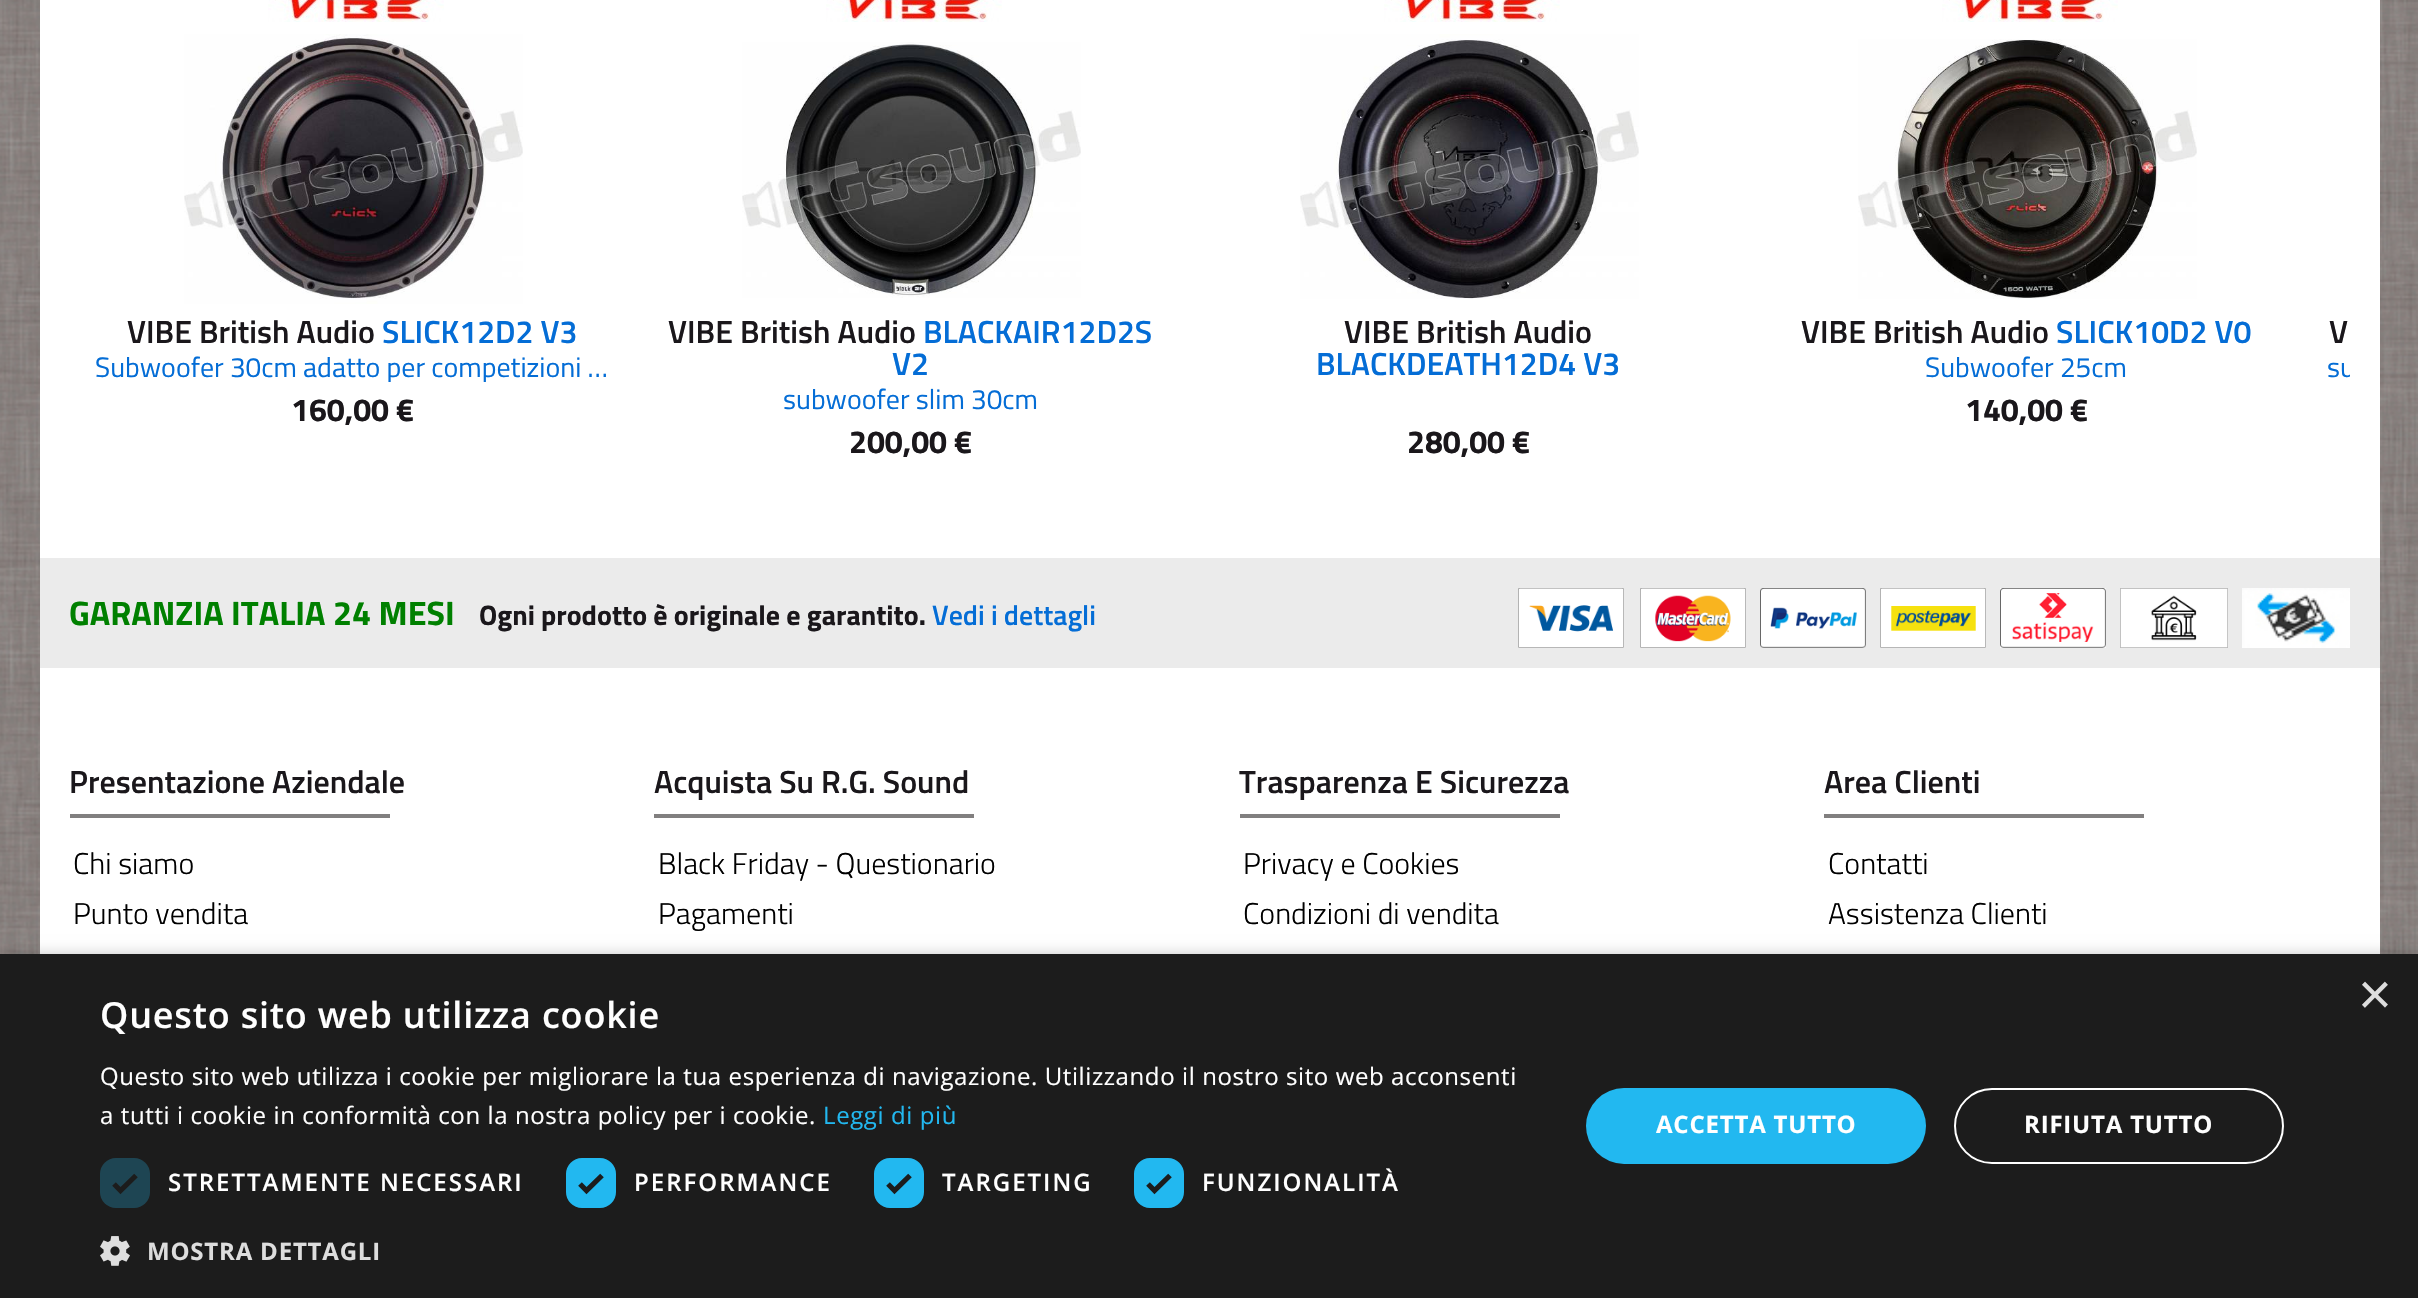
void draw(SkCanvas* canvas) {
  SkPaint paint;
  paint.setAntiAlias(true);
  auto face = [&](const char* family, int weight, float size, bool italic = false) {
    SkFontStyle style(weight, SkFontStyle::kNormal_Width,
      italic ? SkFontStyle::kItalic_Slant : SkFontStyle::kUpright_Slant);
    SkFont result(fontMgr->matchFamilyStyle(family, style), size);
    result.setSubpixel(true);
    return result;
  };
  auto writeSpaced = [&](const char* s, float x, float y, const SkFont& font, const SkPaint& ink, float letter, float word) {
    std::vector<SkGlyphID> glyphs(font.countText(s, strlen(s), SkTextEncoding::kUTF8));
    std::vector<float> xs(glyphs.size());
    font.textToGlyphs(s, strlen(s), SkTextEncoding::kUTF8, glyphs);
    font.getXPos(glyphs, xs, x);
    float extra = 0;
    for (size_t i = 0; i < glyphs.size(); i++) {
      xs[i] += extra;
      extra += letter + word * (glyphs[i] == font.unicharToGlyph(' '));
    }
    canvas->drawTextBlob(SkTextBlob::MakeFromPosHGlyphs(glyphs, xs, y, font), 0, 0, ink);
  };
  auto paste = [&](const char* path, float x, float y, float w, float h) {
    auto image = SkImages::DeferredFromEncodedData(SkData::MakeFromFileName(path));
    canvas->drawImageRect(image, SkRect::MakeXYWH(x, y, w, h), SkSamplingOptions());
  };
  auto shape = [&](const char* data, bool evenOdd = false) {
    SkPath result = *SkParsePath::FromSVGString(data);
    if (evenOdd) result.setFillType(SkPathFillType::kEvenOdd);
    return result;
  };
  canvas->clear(0xffffffff);
  paste("img/1.png", 0, 0, 2418, 954);
  paint.setColor(0xffffffff);
  canvas->drawRect(SkRect::MakeXYWH(40, 0, 2340, 954), paint);
  paste("img/2.png", 268, 0, 176, 22);
  paste("img/3.png", 184, 34, 339, 270);
  paste("img/2.png", 826, 0, 176, 22);
  paste("img/4.png", 742, 42, 339, 256);
  paste("img/2.png", 1384, 0, 176, 22);
  paste("img/5.png", 1300, 34, 339, 265);
  paste("img/2.png", 1942, 0, 176, 22);
  paste("img/6.png", 1858, 39, 339, 260);
  paint.setColor(0xffebebeb);
  canvas->drawRect(SkRect::MakeXYWH(40, 558, 2340, 110), paint);
  paste("img/7.png", 1518, 588, 106, 60);
  paste("img/8.png", 1640, 588, 106, 60);
  paste("img/9.png", 1760, 588, 106, 60);
  paste("img/10.png", 1880, 588, 106, 60);
  paste("img/11.png", 2000, 588, 106, 60);
  paste("img/12.png", 2120, 588, 108, 60);
  paste("img/13.png", 2242, 588, 108, 60);
  {
    const struct { float x, y, w, h; SkColor color; } items[] = {
      {70, 814, 320, 4, 0xff817f7f},
      {654, 814, 320, 4, 0xff817f7f},
      {1240, 814, 320, 4, 0xff817f7f},
      {1824, 814, 320, 4, 0xff817f7f},
    };
    for (auto [x, y, w, h, color] : items) {
      paint.setColor(color);
      canvas->drawRect(SkRect::MakeXYWH(x, y, w, h), paint);
    }
  }
  paint.setColor(0x59000000);
  paint.setMaskFilter(SkMaskFilter::MakeBlur(kNormal_SkBlurStyle, 8));
  canvas->drawRect(SkRect::MakeXYWH(2, 958, 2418, 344), paint);
  paint.setMaskFilter(nullptr);
  paint.setColor(0xff1c1c1c);
  canvas->drawRect(SkRect::MakeXYWH(0, 954, 2418, 344), paint);
  paint.setColor(0xff1e4553);
  canvas->drawRoundRect(SkRect::MakeXYWH(100, 1158, 50, 50), 16, 16, paint);
  paint.setStroke(true);
  paint.setStrokeWidth(5.2f);
  paint.setColor(0xff1c1c1c);
  canvas->drawPath(shape("M114 1184L120.5 1190.5L136 1175.5"), paint);
  paint.setStroke(false);
  paint.setColor(0xff22b8f0);
  canvas->drawRoundRect(SkRect::MakeXYWH(568, 1160, 46, 46), 14, 14, paint);
  paint.setStroke(true);
  paint.setStrokeWidth(4);
  canvas->drawRoundRect(SkRect::MakeXYWH(568, 1160, 46, 46), 14, 14, paint);
  paint.setStrokeWidth(5.2f);
  paint.setColor(0xff1c1c1c);
  canvas->drawPath(shape("M580 1184L586.5 1190.5L602 1175.5"), paint);
  paint.setStroke(false);
  paint.setColor(0xff22b8f0);
  canvas->drawRoundRect(SkRect::MakeXYWH(876, 1160, 46, 46), 14, 14, paint);
  paint.setStroke(true);
  paint.setStrokeWidth(4);
  canvas->drawRoundRect(SkRect::MakeXYWH(876, 1160, 46, 46), 14, 14, paint);
  paint.setStrokeWidth(5.2f);
  paint.setColor(0xff1c1c1c);
  canvas->drawPath(shape("M888 1184L894.5 1190.5L910 1175.5"), paint);
  paint.setStroke(false);
  paint.setColor(0xff22b8f0);
  canvas->drawRoundRect(SkRect::MakeXYWH(1136, 1160, 46, 46), 14, 14, paint);
  paint.setStroke(true);
  paint.setStrokeWidth(4);
  canvas->drawRoundRect(SkRect::MakeXYWH(1136, 1160, 46, 46), 14, 14, paint);
  paint.setStrokeWidth(5.2f);
  paint.setColor(0xff1c1c1c);
  canvas->drawPath(shape("M1148 1184L1154.5 1190.5L1170 1175.5"), paint);
  paste("img/14.png", 100, 1236, 30, 30);
  paint.setStroke(false);
  paint.setColor(0xff22b8f0);
  canvas->drawRoundRect(SkRect::MakeXYWH(1586, 1088, 340, 76), 38, 38, paint);
  paint.setStroke(true);
  paint.setStrokeWidth(2);
  paint.setColor(0xffffffff);
  canvas->drawRoundRect(SkRect::MakeXYWH(1955, 1089, 328, 74), 37, 37, paint);
  auto f0 = face("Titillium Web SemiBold", 600, 32);
  paint.setStroke(false);
  paint.setColor(0xff1a171b);
  canvas->drawString("VIBE British Audio", 127, 343, f0, paint);
  paint.setColor(0xff046dd6);
  canvas->drawString("SLICK12D2 V3", 382, 343, f0, paint);
  canvas->save();
  canvas->clipRect(SkRect::MakeXYWH(96, 350, 514, 32));
  auto f1 = face("Titillium Web", 400, 28);
  canvas->drawString("Subwoofer 30cm adatto per competizioni …", 95, 377, f1, paint);
  canvas->restore();
  auto f2 = face("Titillium Web", 700, 32);
  paint.setColor(0xff1a171b);
  canvas->drawString("160,00 €", 291, 421, f2, paint);
  canvas->drawString("VIBE British Audio", 668, 343, f0, paint);
  paint.setColor(0xff046dd6);
  canvas->drawString("BLACKAIR12D2S", 923, 343, f0, paint);
  canvas->drawString("V2", 892, 375, f0, paint);
  canvas->drawString("subwoofer slim 30cm", 783, 409, f1, paint);
  paint.setColor(0xff1a171b);
  canvas->drawString("200,00 €", 849, 453, f2, paint);
  canvas->drawString("VIBE British Audio", 1344, 343, f0, paint);
  paint.setColor(0xff046dd6);
  canvas->drawString("BLACKDEATH12D4 V3", 1316, 375, f0, paint);
  paint.setColor(0xff1a171b);
  canvas->drawString("280,00 €", 1407, 453, f2, paint);
  canvas->drawString("VIBE British Audio", 1801, 343, f0, paint);
  paint.setColor(0xff046dd6);
  canvas->drawString("SLICK10D2 V0", 2056, 343, f0, paint);
  canvas->drawString("Subwoofer 25cm", 1925, 377, f1, paint);
  paint.setColor(0xff1a171b);
  canvas->drawString("140,00 €", 1965, 421, f2, paint);
  canvas->drawString("V", 2329, 343, f0, paint);
  canvas->save();
  canvas->clipRect(SkRect::MakeXYWH(2328, 350, 22, 32));
  paint.setColor(0xff046dd6);
  canvas->drawString("su", 2327, 377, f1, paint);
  canvas->restore();
  auto f3 = face("Titillium Web", 700, 34);
  paint.setColor(0xff008000);
  canvas->drawString("GARANZIA ITALIA 24 MESI", 69, 625, f3, paint);
  auto f4 = face("Titillium Web", 700, 28);
  paint.setColor(0xff1a171b);
  canvas->drawString("Ogni prodotto è originale e garantito.", 479, 625, f4, paint);
  auto f5 = face("Titillium Web SemiBold", 600, 28);
  paint.setColor(0xff046dd6);
  canvas->drawString("Vedi i dettagli", 932, 625, f5, paint);
  paint.setColor(0xff1a171b);
  canvas->drawString("Presentazione Aziendale", 69, 793, f0, paint);
  auto f6 = face("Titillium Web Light", 300, 30);
  paint.setColor(0xff000000);
  canvas->drawString("Chi siamo", 73, 874, f6, paint);
  canvas->drawString("Punto vendita", 73, 924, f6, paint);
  paint.setColor(0xff1a171b);
  canvas->drawString("Acquista Su R.G. Sound", 654, 793, f0, paint);
  paint.setColor(0xff000000);
  canvas->drawString("Black Friday - Questionario", 658, 874, f6, paint);
  canvas->drawString("Pagamenti", 658, 924, f6, paint);
  paint.setColor(0xff1a171b);
  canvas->drawString("Trasparenza E Sicurezza", 1239, 793, f0, paint);
  paint.setColor(0xff000000);
  canvas->drawString("Privacy e Cookies", 1243, 874, f6, paint);
  canvas->drawString("Condizioni di vendita", 1243, 924, f6, paint);
  paint.setColor(0xff1a171b);
  canvas->drawString("Area Clienti", 1824, 793, f0, paint);
  paint.setColor(0xff000000);
  canvas->drawString("Contatti", 1828, 874, f6, paint);
  canvas->drawString("Assistenza Clienti", 1828, 924, f6, paint);
  auto f7 = face("Liberation Sans", 400, 58);
  paint.setColor(0xffdddddd);
  canvas->drawString("×", 2358, 1014, f7, paint);
  auto f8 = face("Open Sans", 600, 36);
  paint.setColor(0xffffffff);
  writeSpaced("Questo sito web utilizza cookie", 100, 1028, f8, paint, 0.8f, 0);
  auto f9 = face("Open Sans", 400, 24);
  writeSpaced("Questo sito web utilizza i cookie per migliorare la tua esperienza di navigazione. Utilizzando il nostro sito web acconsenti", 100, 1085, f9, paint, 0.6f, 0);
  writeSpaced("a tutti i cookie in conformità con la nostra policy per i cookie.", 100, 1124, f9, paint, 0.6f, 0);
  paint.setColor(0xff22b8f0);
  writeSpaced("Leggi di più", 823, 1124, f9, paint, 0.6f, 0);
  auto f10 = face("Open Sans", 600, 24);
  paint.setColor(0xffffffff);
  {
    const struct { const char* s; float x, y; } items[] = {
      {"STRETTAMENTE NECESSARI", 168, 1191},
      {"PERFORMANCE", 634, 1191},
      {"TARGETING", 942, 1191},
      {"FUNZIONALITÀ", 1202, 1191},
    };
    for (auto [s, x, y] : items) {
      writeSpaced(s, x, y, f10, paint, 2, 0);
    }
  }
  auto f11 = face("Open Sans", 700, 24);
  paint.setColor(0xffdddddd);
  writeSpaced("MOSTRA DETTAGLI", 147, 1260, f11, paint, 0.8f, 0);
  paint.setColor(0xffffffff);
  writeSpaced("ACCETTA TUTTO", 1656, 1133, f11, paint, 0.8f, 0);
  writeSpaced("RIFIUTA TUTTO", 2024, 1133, f11, paint, 0.8f, 0);
}
